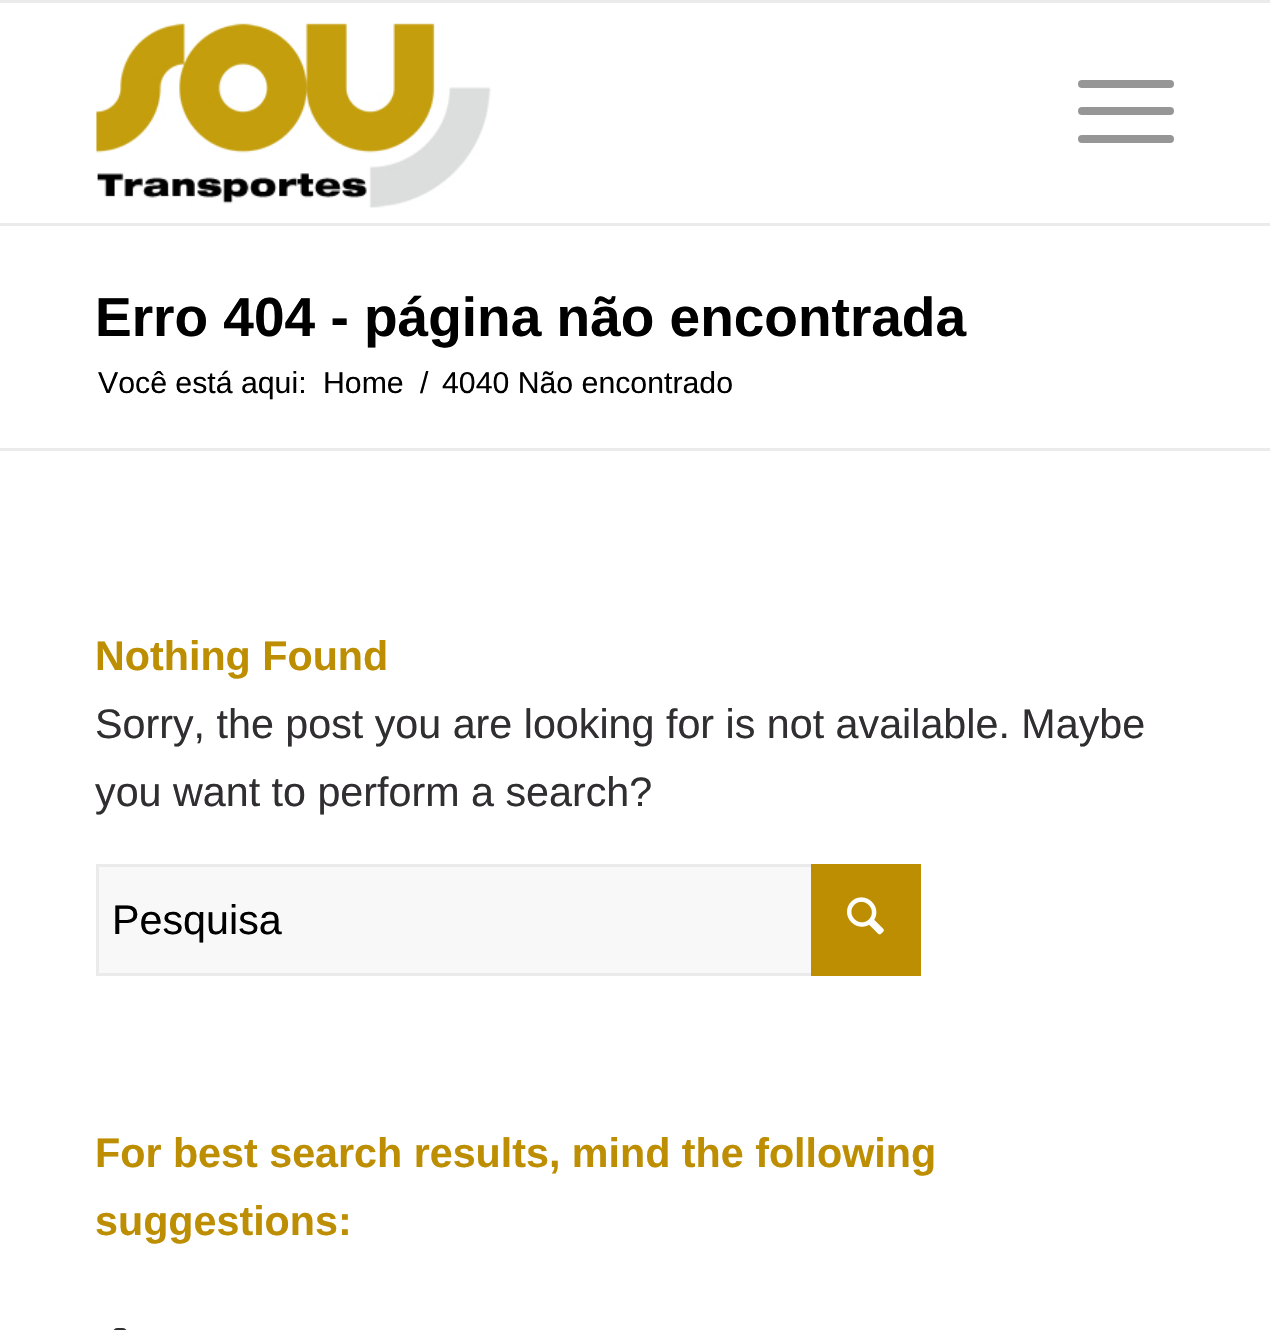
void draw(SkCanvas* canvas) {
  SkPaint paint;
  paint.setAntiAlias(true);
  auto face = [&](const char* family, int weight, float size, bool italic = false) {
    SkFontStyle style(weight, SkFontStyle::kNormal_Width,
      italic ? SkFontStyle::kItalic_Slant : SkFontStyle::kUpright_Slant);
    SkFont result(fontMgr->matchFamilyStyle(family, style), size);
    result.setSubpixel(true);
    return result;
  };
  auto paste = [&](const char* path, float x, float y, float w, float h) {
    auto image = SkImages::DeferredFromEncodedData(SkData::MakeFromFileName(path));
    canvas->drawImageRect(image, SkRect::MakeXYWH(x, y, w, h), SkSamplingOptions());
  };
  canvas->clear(0xffffffff);
  paint.setColor(0xffebebeb);
  canvas->drawRect(SkRect::MakeXYWH(0, 0, 1270, 3), paint);
  canvas->drawRect(SkRect::MakeXYWH(0, 223, 1270, 3), paint);
  paste("img/1.png", 96, 23, 395, 185);
  paint.setColor(0xff969696);
  canvas->drawRoundRect(SkRect::MakeXYWH(1078, 107, 96, 8), 4, 4, paint);
  canvas->drawRoundRect(SkRect::MakeXYWH(1078, 80, 96, 8), 4, 4, paint);
  canvas->drawRoundRect(SkRect::MakeXYWH(1078, 135, 96, 8), 4, 4, paint);
  paint.setColor(0xffebebeb);
  canvas->drawRect(SkRect::MakeXYWH(0, 448, 1270, 3), paint);
  paint.setColor(0xfff8f8f8);
  canvas->drawRect(SkRect::MakeXYWH(99, 867, 712, 106), paint);
  paint.setStroke(true);
  paint.setStrokeWidth(3);
  paint.setColor(0xffebebeb);
  canvas->drawRect(SkRect::MakeXYWH(97.5f, 865.5f, 822, 109), paint);
  paint.setStroke(false);
  paint.setColor(0xffbd8e02);
  canvas->drawRect(SkRect::MakeXYWH(811, 864, 110, 112), paint);
  paste("img/2.png", 847, 897, 37, 38);
  paint.setColor(0xff302e30);
  canvas->drawRoundRect(SkRect::MakeXYWH(113, 1328, 14, 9), 7, 7, paint);
  auto f0 = face("Liberation Sans", 700, 55);
  paint.setColor(0xff000000);
  canvas->drawString("Erro 404 - página não encontrada", 95, 336, f0, paint);
  auto f1 = face("Liberation Sans", 400, 30.25f);
  {
    const struct { const char* s; float x, y; } items[] = {
      {"Você está aqui:", 98, 393},
      {"Home", 323, 393},
      {"/", 420, 393},
      {"4040 Não encontrado", 442, 393},
    };
    for (auto [s, x, y] : items) {
      canvas->drawString(s, x, y, f1, paint);
    }
  }
  auto f2 = face("Liberation Sans", 700, 41.25f);
  paint.setColor(0xffbd8e02);
  canvas->drawString("Nothing Found", 95, 670, f2, paint);
  auto f3 = face("Liberation Sans", 400, 41.25f);
  paint.setColor(0xff302e30);
  canvas->drawString("Sorry, the post you are looking for is not available. Maybe", 95, 738, f3, paint);
  canvas->drawString("you want to perform a search?", 95, 806, f3, paint);
  paint.setColor(0xff000000);
  canvas->drawString("Pesquisa", 112, 934, f3, paint);
  paint.setColor(0xffbd8e02);
  canvas->drawString("For best search results, mind the following", 95, 1167, f2, paint);
  canvas->drawString("suggestions:", 95, 1235, f2, paint);
}
